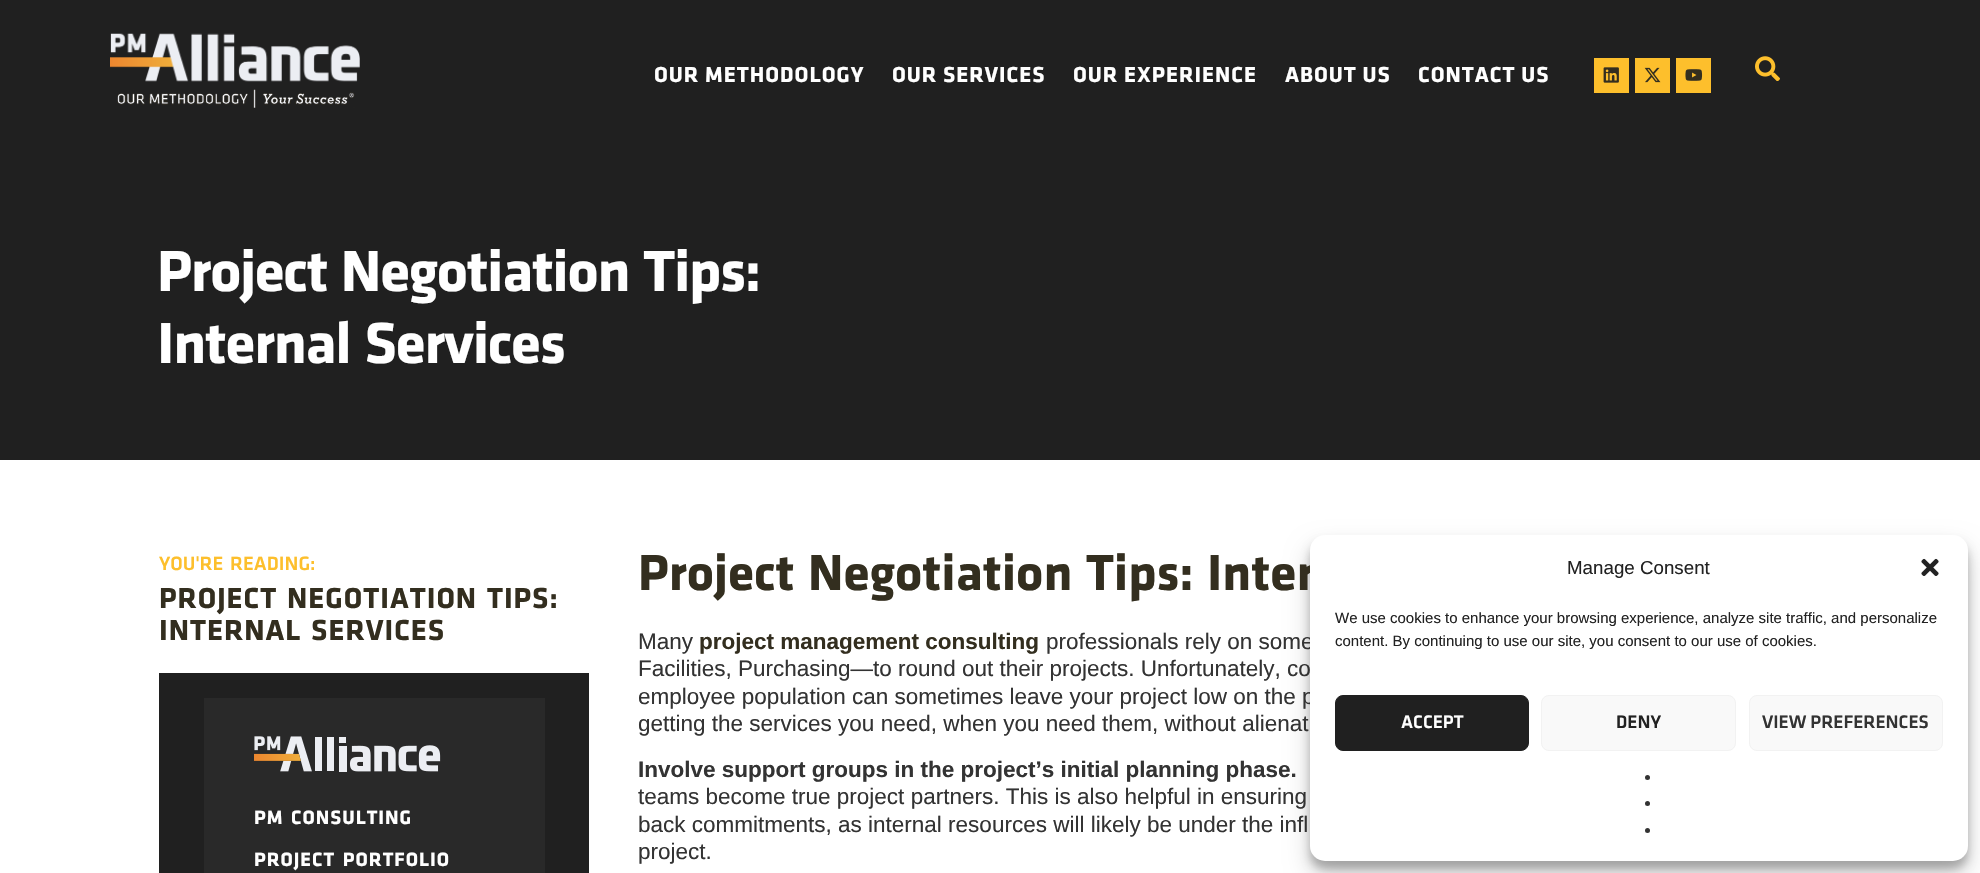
void draw(SkCanvas* canvas) {
  SkPaint paint;
  paint.setAntiAlias(true);
  auto face = [&](const char* family, int weight, float size, bool italic = false) {
    SkFontStyle style(weight, SkFontStyle::kNormal_Width,
      italic ? SkFontStyle::kItalic_Slant : SkFontStyle::kUpright_Slant);
    SkFont result(fontMgr->matchFamilyStyle(family, style), size);
    result.setSubpixel(true);
    return result;
  };
  auto writeSpaced = [&](const char* s, float x, float y, const SkFont& font, const SkPaint& ink, float letter, float word) {
    std::vector<SkGlyphID> glyphs(font.countText(s, strlen(s), SkTextEncoding::kUTF8));
    std::vector<float> xs(glyphs.size());
    font.textToGlyphs(s, strlen(s), SkTextEncoding::kUTF8, glyphs);
    font.getXPos(glyphs, xs, x);
    float extra = 0;
    for (size_t i = 0; i < glyphs.size(); i++) {
      xs[i] += extra;
      extra += letter + word * (glyphs[i] == font.unicharToGlyph(' '));
    }
    canvas->drawTextBlob(SkTextBlob::MakeFromPosHGlyphs(glyphs, xs, y, font), 0, 0, ink);
  };
  auto paste = [&](const char* path, float x, float y, float w, float h) {
    auto image = SkImages::DeferredFromEncodedData(SkData::MakeFromFileName(path));
    canvas->drawImageRect(image, SkRect::MakeXYWH(x, y, w, h), SkSamplingOptions());
  };
  canvas->clear(0xffffffff);
  paint.setColor(0xff202020);
  canvas->drawRect(SkRect::MakeXYWH(0, 0, 1980, 460), paint);
  paste("img/1.png", 110, 33, 250, 49);
  paste("img/2.png", 117, 89, 238, 19);
  paint.setColor(0xfffdbf2c);
  canvas->drawRect(SkRect::MakeXYWH(1594, 58, 35, 35), paint);
  paste("img/3.png", 1603, 67, 16, 16);
  canvas->drawRect(SkRect::MakeXYWH(1635, 58, 35, 35), paint);
  paste("img/4.png", 1644, 67, 17, 16);
  canvas->drawRect(SkRect::MakeXYWH(1676, 58, 35, 35), paint);
  paste("img/5.png", 1685, 69, 18, 12);
  paste("img/6.png", 1755, 56, 25, 25);
  paint.setColor(0xff202020);
  canvas->drawRect(SkRect::MakeXYWH(159, 673, 430, 200), paint);
  paint.setColor(0xff292929);
  canvas->drawRect(SkRect::MakeXYWH(204, 698, 341, 175), paint);
  paste("img/7.png", 254, 736, 187, 36);
  paint.setColor(0x3b000000);
  paint.setMaskFilter(SkMaskFilter::MakeBlur(kNormal_SkBlurStyle, 4));
  canvas->drawRoundRect(SkRect::MakeXYWH(1310, 543, 658, 326), 15, 15, paint);
  paint.setMaskFilter(nullptr);
  paint.setColor(0x30000000);
  paint.setMaskFilter(SkMaskFilter::MakeBlur(kNormal_SkBlurStyle, 12.5f));
  canvas->drawRoundRect(SkRect::MakeXYWH(1310, 548, 658, 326), 15, 15, paint);
  paint.setMaskFilter(nullptr);
  auto f0 = face("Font", 700, 22.5f);
  paint.setColor(0xffffffff);
  {
    const struct { const char* s; float x, y; } items[] = {
      {"OUR METHODOLOGY", 654, 82},
      {"OUR SERVICES", 892, 82},
      {"OUR EXPERIENCE", 1073, 82},
      {"ABOUT US", 1285, 82},
      {"CONTACT US", 1418, 82},
    };
    for (auto [s, x, y] : items) {
      writeSpaced(s, x, y, f0, paint, 1, 0);
    }
  }
  auto f1 = face("Font", 700, 60);
  writeSpaced("Project Negotiation Tips:", 157, 291, f1, paint, -1.25f, 2.5f);
  writeSpaced("Internal Services", 157, 363, f1, paint, -1.25f, 2.5f);
  auto f2 = face("Font", 500, 20);
  paint.setColor(0xfffdbf2c);
  writeSpaced("YOU'RE READING:", 159, 570, f2, paint, 0, 2.5f);
  auto f3 = face("Font", 700, 30);
  paint.setColor(0xff332e1f);
  writeSpaced("PROJECT NEGOTIATION TIPS:", 159, 608, f3, paint, 1, 2.5f);
  writeSpaced("INTERNAL SERVICES", 159, 640, f3, paint, 1, 2.5f);
  auto f4 = face("Font", 700, 20);
  paint.setColor(0xffffffff);
  writeSpaced("PM CONSULTING", 254, 824, f4, paint, 1, 2.5f);
  writeSpaced("PROJECT PORTFOLIO", 254, 866, f4, paint, 1, 2.5f);
  auto f5 = face("Font", 700, 52.5f);
  paint.setColor(0xff332e1f);
  writeSpaced("Project Negotiation Tips: Inter", 638, 590, f5, paint, 0, 2.5f);
  auto f6 = face("Liberation Sans", 400, 22.5f);
  paint.setColor(0xff333333);
  canvas->drawString("Many", 638, 649, f6, paint);
  auto f7 = face("Liberation Sans", 700, 22.5f);
  paint.setColor(0xff332e1f);
  canvas->drawString("project management consulting", 699, 649, f7, paint);
  paint.setColor(0xff333333);
  {
    const struct { const char* s; float x, y; } items[] = {
      {"professionals rely on some", 1046, 649},
      {"Facilities, Purchasing—to round out their projects. Unfortunately, co", 638, 676},
      {"employee population can sometimes leave your project low on the p", 638, 704},
      {"getting the services you need, when you need them, without alienat", 638, 731},
    };
    for (auto [s, x, y] : items) {
      canvas->drawString(s, x, y, f6, paint);
    }
  }
  canvas->drawString("Involve support groups in the project’s initial planning phase.", 638, 777, f7, paint);
  {
    const struct { const char* s; float x, y; } items[] = {
      {"teams become true project partners. This is also helpful in ensuring", 638, 804},
      {"back commitments, as internal resources will likely be under the infl", 638, 832},
      {"project.", 638, 859},
    };
    for (auto [s, x, y] : items) {
      canvas->drawString(s, x, y, f6, paint);
    }
  }
  paint.setColor(0xffffffff);
  canvas->drawRoundRect(SkRect::MakeXYWH(1310, 535, 658, 326), 15, 15, paint);
  auto f8 = face("Liberation Sans", 400, 18.75f);
  paint.setColor(0xff222222);
  canvas->drawString("Manage Consent", 1567, 574, f8, paint);
  paste("img/8.png", 1921, 558, 18, 18);
  auto f9 = face("Liberation Sans", 400, 15);
  canvas->drawString("We use cookies to enhance your browsing experience, analyze site traffic, and personalize", 1335, 623, f9, paint);
  canvas->drawString("content. By continuing to use our site, you consent to our use of cookies.", 1335, 646, f9, paint);
  paint.setColor(0xff202020);
  canvas->drawRoundRect(SkRect::MakeXYWH(1335.5f, 695.5f, 193, 55), 7.5f, 7.5f, paint);
  paint.setStroke(true);
  paint.setStrokeWidth(1);
  canvas->drawRoundRect(SkRect::MakeXYWH(1335.5f, 695.5f, 193, 55), 7.5f, 7.5f, paint);
  auto f10 = face("Font", 500, 18.75f);
  paint.setStroke(false);
  paint.setColor(0xffffffff);
  canvas->drawString("ACCEPT", 1401, 728, f10, paint);
  paint.setColor(0xfff9f9f9);
  canvas->drawRoundRect(SkRect::MakeXYWH(1541.5f, 695.5f, 194, 55), 7.5f, 7.5f, paint);
  paint.setStroke(true);
  paint.setColor(0xfff2f2f2);
  canvas->drawRoundRect(SkRect::MakeXYWH(1541.5f, 695.5f, 194, 55), 7.5f, 7.5f, paint);
  paint.setStroke(false);
  paint.setColor(0xff222222);
  canvas->drawString("DENY", 1616, 728, f10, paint);
  paint.setColor(0xfff9f9f9);
  canvas->drawRoundRect(SkRect::MakeXYWH(1749.5f, 695.5f, 193, 55), 7.5f, 7.5f, paint);
  paint.setStroke(true);
  paint.setColor(0xfff2f2f2);
  canvas->drawRoundRect(SkRect::MakeXYWH(1749.5f, 695.5f, 193, 55), 7.5f, 7.5f, paint);
  paint.setStroke(false);
  paint.setColor(0xff333333);
  canvas->drawString("VIEW PREFERENCES", 1762, 728, f10, paint);
  canvas->drawCircle(1647.5f, 777.5f, 2.5f, paint);
  canvas->drawCircle(1647.5f, 803.5f, 2.5f, paint);
  canvas->drawCircle(1647.5f, 830.5f, 2.5f, paint);
}
